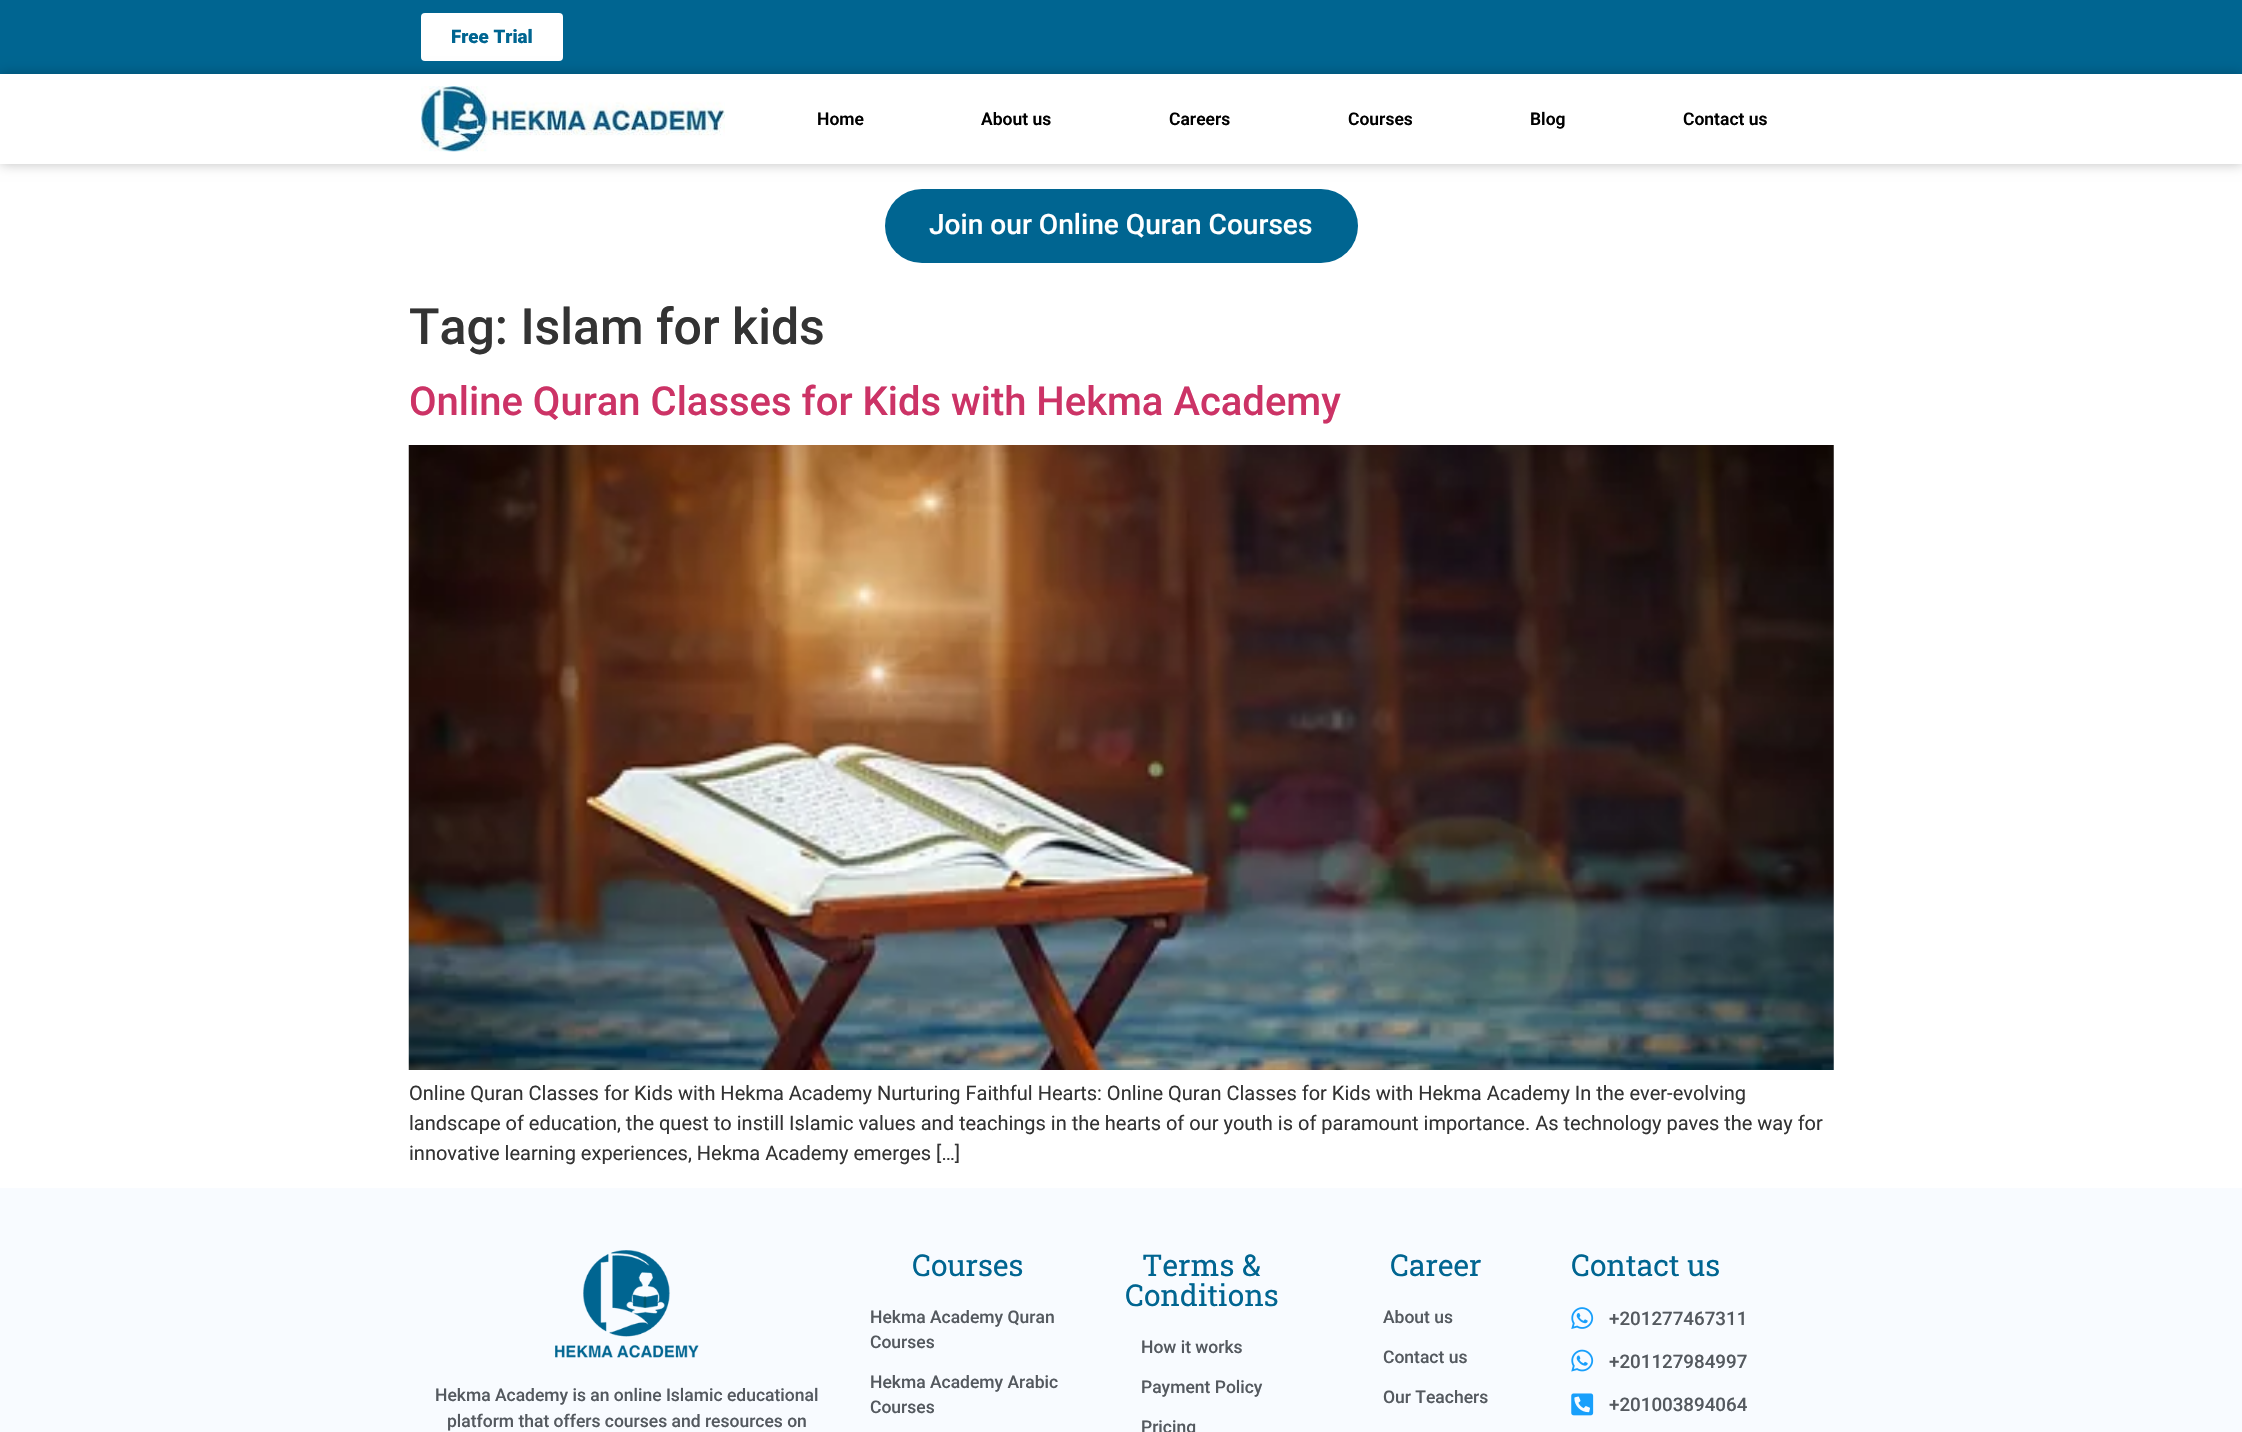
void draw(SkCanvas* canvas) {
  SkPaint paint;
  paint.setAntiAlias(true);
  auto face = [&](const char* family, int weight, float size, bool italic = false) {
    SkFontStyle style(weight, SkFontStyle::kNormal_Width,
      italic ? SkFontStyle::kItalic_Slant : SkFontStyle::kUpright_Slant);
    SkFont result(fontMgr->matchFamilyStyle(family, style), size);
    result.setSubpixel(true);
    return result;
  };
  auto paste = [&](const char* path, float x, float y, float w, float h) {
    auto image = SkImages::DeferredFromEncodedData(SkData::MakeFromFileName(path));
    canvas->drawImageRect(image, SkRect::MakeXYWH(x, y, w, h), SkSamplingOptions());
  };
  canvas->clear(0xffffffff);
  paint.setColor(0xff006591);
  canvas->drawRect(SkRect::MakeXYWH(0, 0, 2242, 74), paint);
  paint.setColor(0xffffffff);
  canvas->drawRoundRect(SkRect::MakeXYWH(421, 13, 142, 48), 4, 4, paint);
  paint.setColor(0x40000000);
  paint.setMaskFilter(SkMaskFilter::MakeBlur(kNormal_SkBlurStyle, 6));
  canvas->drawRect(SkRect::MakeXYWH(0, 74, 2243, 90), paint);
  paint.setMaskFilter(nullptr);
  paint.setColor(0xffffffff);
  canvas->drawRect(SkRect::MakeXYWH(0, 74, 2242, 90), paint);
  paste("img/1.png", 421, 86, 304, 66);
  paint.setColor(0xff006591);
  canvas->drawRoundRect(SkRect::MakeXYWH(885, 189, 473, 74), 37, 37, paint);
  paste("img/2.png", 408, 445, 1426, 625);
  paint.setColor(0xfff8fbff);
  canvas->drawRect(SkRect::MakeXYWH(0, 1188, 2242, 244), paint);
  paste("img/3.png", 555, 1250, 144, 108);
  paste("img/4.png", 1571, 1307, 23, 22);
  paste("img/5.png", 1571, 1349, 23, 23);
  paste("img/6.png", 1571, 1393, 23, 23);
  auto f0 = face("Roboto", 900, 18.75f);
  paint.setColor(0xff006591);
  canvas->drawString("Free Trial", 451, 43, f0, paint);
  auto f1 = face("Roboto", 600, 17.5f);
  paint.setColor(0xff000000);
  {
    const struct { const char* s; float x, y; } items[] = {
      {"Home", 817, 125},
      {"About us", 981, 125},
      {"Careers", 1169, 125},
      {"Courses", 1348, 125},
      {"Blog", 1530, 125},
      {"Contact us", 1683, 125},
    };
    for (auto [s, x, y] : items) {
      canvas->drawString(s, x, y, f1, paint);
    }
  }
  auto f2 = face("Roboto", 500, 28.1f);
  paint.setColor(0xffffffff);
  canvas->drawString("Join our Online Quran Courses", 929, 234, f2, paint);
  auto f3 = face("Roboto", 500, 50);
  paint.setColor(0xff333333);
  canvas->drawString("Tag: Islam for kids", 409, 344, f3, paint);
  auto f4 = face("Roboto", 500, 40);
  paint.setColor(0xffcc3366);
  canvas->drawString("Online Quran Classes for Kids with Hekma Academy", 409, 415, f4, paint);
  auto f5 = face("Roboto", 400, 20);
  paint.setColor(0xff333333);
  {
    const struct { const char* s; float x, y; } items[] = {
      {"Online Quran Classes for Kids with Hekma Academy Nurturing Faithful Hearts: Online Quran Classes for Kids with Hekma Academy In the ever-evolving", 409, 1100},
      {"landscape of education, the quest to instill Islamic values and teachings in the hearts of our youth is of paramount importance. As technology paves the way for", 409, 1130},
      {"innovative learning experiences, Hekma Academy emerges […]", 409, 1160},
    };
    for (auto [s, x, y] : items) {
      canvas->drawString(s, x, y, f5, paint);
    }
  }
  auto f6 = face("Roboto", 500, 17.5f);
  paint.setColor(0xff54595f);
  canvas->drawString("Hekma Academy is an online Islamic educational", 435, 1401, f6, paint);
  canvas->drawString("platform that offers courses and resources on", 447, 1427, f6, paint);
  auto f7 = face("Roboto Slab", 400, 30);
  paint.setColor(0xff006591);
  canvas->drawString("Courses", 912, 1276, f7, paint);
  paint.setColor(0xff54595f);
  {
    const struct { const char* s; float x, y; } items[] = {
      {"Hekma Academy Quran", 870, 1323},
      {"Courses", 870, 1348},
      {"Hekma Academy Arabic", 870, 1388},
      {"Courses", 870, 1413},
    };
    for (auto [s, x, y] : items) {
      canvas->drawString(s, x, y, f6, paint);
    }
  }
  paint.setColor(0xff006591);
  canvas->drawString("Terms &", 1142, 1276, f7, paint);
  canvas->drawString("Conditions", 1125, 1306, f7, paint);
  paint.setColor(0xff54595f);
  {
    const struct { const char* s; float x, y; } items[] = {
      {"How it works", 1141, 1353},
      {"Payment Policy", 1141, 1393},
      {"Pricing", 1141, 1433},
    };
    for (auto [s, x, y] : items) {
      canvas->drawString(s, x, y, f6, paint);
    }
  }
  paint.setColor(0xff006591);
  canvas->drawString("Career", 1390, 1276, f7, paint);
  paint.setColor(0xff54595f);
  {
    const struct { const char* s; float x, y; } items[] = {
      {"About us", 1383, 1323},
      {"Contact us", 1383, 1363},
      {"Our Teachers", 1383, 1403},
    };
    for (auto [s, x, y] : items) {
      canvas->drawString(s, x, y, f6, paint);
    }
  }
  paint.setColor(0xff006591);
  canvas->drawString("Contact us", 1571, 1276, f7, paint);
  auto f8 = face("Roboto", 500, 18.75f);
  paint.setColor(0xff54595f);
  {
    const struct { const char* s; float x, y; } items[] = {
      {"+201277467311", 1609, 1325},
      {"+201127984997", 1609, 1368},
      {"+201003894064", 1609, 1411},
    };
    for (auto [s, x, y] : items) {
      canvas->drawString(s, x, y, f8, paint);
    }
  }
}
